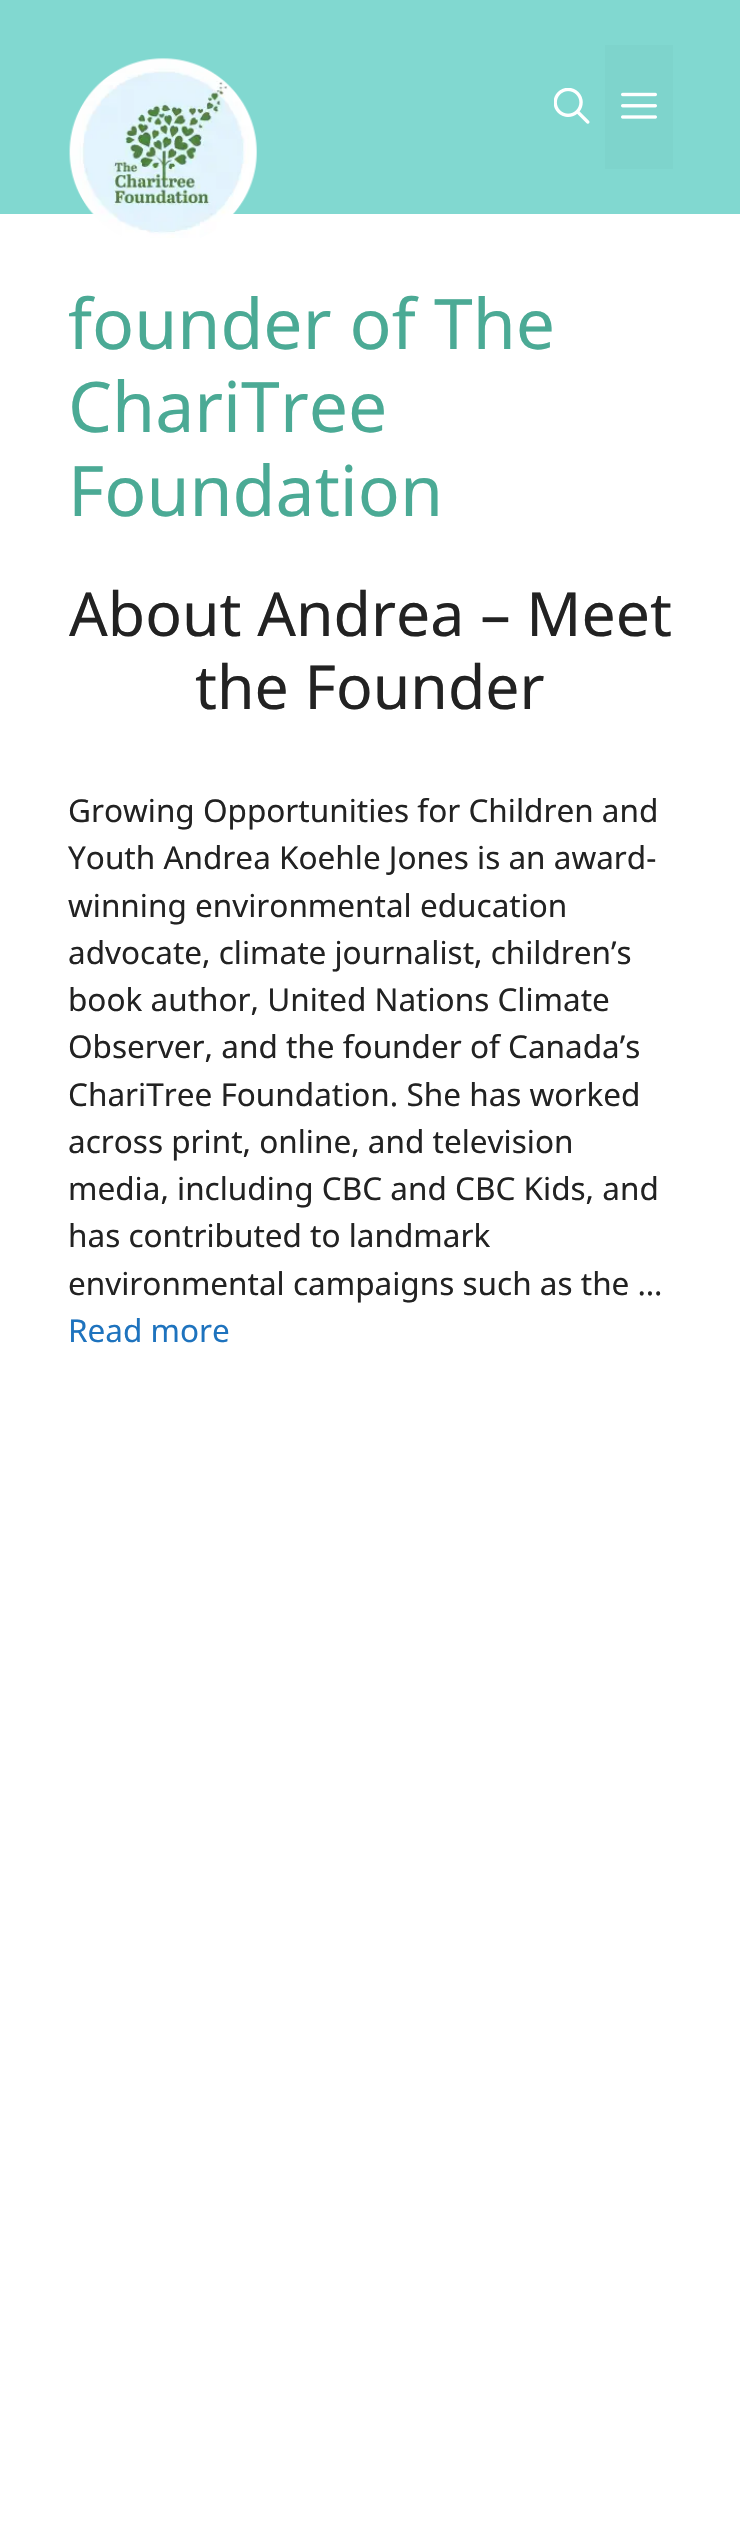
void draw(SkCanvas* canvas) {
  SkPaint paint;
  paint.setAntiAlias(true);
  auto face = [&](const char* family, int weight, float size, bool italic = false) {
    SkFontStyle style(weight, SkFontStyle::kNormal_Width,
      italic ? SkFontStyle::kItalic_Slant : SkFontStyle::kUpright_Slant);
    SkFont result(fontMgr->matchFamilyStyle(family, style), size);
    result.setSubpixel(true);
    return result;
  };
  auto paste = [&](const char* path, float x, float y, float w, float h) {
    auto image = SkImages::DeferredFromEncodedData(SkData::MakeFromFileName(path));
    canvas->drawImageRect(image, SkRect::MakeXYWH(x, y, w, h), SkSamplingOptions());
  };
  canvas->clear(0xffffffff);
  paint.setColor(0xff81d8d0);
  canvas->drawRect(SkRect::MakeXYWH(0, 0, 740, 214), paint);
  paste("img/1.png", 69, 58, 188, 180);
  paste("img/2.png", 554, 88, 36, 36);
  paint.setColor(0xff7ed4cc);
  canvas->drawRect(SkRect::MakeXYWH(605, 45, 68, 124), paint);
  paste("img/3.png", 621, 92, 36, 27);
  auto f0 = face("Noto Sans", 400, 69.75f);
  paint.setColor(0xff4baa95);
  {
    const struct { const char* s; float x, y; } items[] = {
      {"founder of The", 68, 349},
      {"ChariTree", 68, 432},
      {"Foundation", 68, 516},
    };
    for (auto [s, x, y] : items) {
      canvas->drawString(s, x, y, f0, paint);
    }
  }
  auto f1 = face("Noto Sans", 400, 60.75f);
  paint.setColor(0xff222222);
  canvas->drawString("About Andrea – Meet", 69, 636, f1, paint);
  canvas->drawString("the Founder", 195, 709, f1, paint);
  auto f2 = face("Noto Sans", 400, 31.5f);
  {
    const struct { const char* s; float x, y; } items[] = {
      {"Growing Opportunities for Children and", 68, 822},
      {"Youth Andrea Koehle Jones is an award-", 68, 869},
      {"winning environmental education", 68, 917},
      {"advocate, climate journalist, children’s", 68, 964},
      {"book author, United Nations Climate", 68, 1011},
      {"Observer, and the founder of Canada’s", 68, 1058},
      {"ChariTree Foundation. She has worked", 68, 1106},
      {"across print, online, and television", 68, 1153},
      {"media, including CBC and CBC Kids, and", 68, 1200},
      {"has contributed to landmark", 68, 1247},
      {"environmental campaigns such as the …", 68, 1295},
    };
    for (auto [s, x, y] : items) {
      canvas->drawString(s, x, y, f2, paint);
    }
  }
  paint.setColor(0xff1e73be);
  canvas->drawString("Read more", 68, 1342, f2, paint);
}
